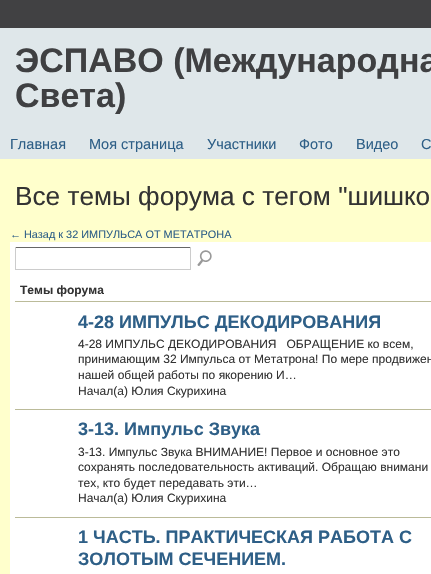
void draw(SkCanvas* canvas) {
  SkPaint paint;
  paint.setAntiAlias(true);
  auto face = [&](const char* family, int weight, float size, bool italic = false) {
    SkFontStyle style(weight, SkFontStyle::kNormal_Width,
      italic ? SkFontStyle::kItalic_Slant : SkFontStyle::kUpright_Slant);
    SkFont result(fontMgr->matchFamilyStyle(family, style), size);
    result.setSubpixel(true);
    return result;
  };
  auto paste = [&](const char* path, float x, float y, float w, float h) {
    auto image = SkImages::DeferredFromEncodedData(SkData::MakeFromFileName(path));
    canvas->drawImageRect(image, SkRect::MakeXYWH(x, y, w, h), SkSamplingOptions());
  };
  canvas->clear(0xffdfe7ea);
  {
    const struct { float x, y, w, h; SkColor color; } items[] = {
      {0, 0, 431, 28, 0xff414143},
      {0, 159, 431, 415, 0xffffffcc},
      {10, 242, 421, 332, 0xffffffff},
      {15, 247, 176, 1, 0xff666666},
      {190, 247, 1, 23, 0xffcccccc},
      {15, 269, 176, 1, 0xffcccccc},
      {15, 247, 1, 23, 0xffcccccc},
    };
    for (auto [x, y, w, h, color] : items) {
      paint.setColor(color);
      canvas->drawRect(SkRect::MakeXYWH(x, y, w, h), paint);
    }
  }
  paste("img/1.png", 197, 250, 15, 16);
  {
    const struct { float x, y, w, h; SkColor color; } items[] = {
      {15, 301, 416, 1, 0xffbbbb99},
      {15, 409, 416, 1, 0xffbbbb99},
      {15, 517, 416, 1, 0xffbbbb99},
    };
    for (auto [x, y, w, h, color] : items) {
      paint.setColor(color);
      canvas->drawRect(SkRect::MakeXYWH(x, y, w, h), paint);
    }
  }
  auto f0 = face("Liberation Sans", 700, 34);
  paint.setColor(0xff3f4042);
  canvas->drawString("ЭСПАВО (Международна", 15, 72, f0, paint);
  canvas->save();
  canvas->clipRect(SkRect::MakeXYWH(0, 28, 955, 86));
  canvas->drawString("Света)", 15, 107, f0, paint);
  canvas->restore();
  auto f1 = face("Liberation Sans", 400, 14.5f);
  paint.setColor(0xff2e5f87);
  {
    const struct { const char* s; float x, y; } items[] = {
      {"Главная", 10, 149},
      {"Моя страница", 89, 149},
      {"Участники", 207, 149},
      {"Фото", 299, 149},
      {"Видео", 356, 149},
      {"С", 421, 149},
    };
    for (auto [s, x, y] : items) {
      canvas->drawString(s, x, y, f1, paint);
    }
  }
  auto f2 = face("Liberation Sans", 400, 26.2f);
  paint.setColor(0xff333333);
  canvas->drawString("Все темы форума с тегом \"шишко", 15, 205, f2, paint);
  auto f3 = face("Liberation Sans", 400, 10.9f);
  paint.setColor(0xff2e5f87);
  canvas->drawString("← Назад к 32 ИМПУЛЬСА ОТ МЕТАТРОНА", 10, 238, f3, paint);
  auto f4 = face("Liberation Sans", 700, 12);
  paint.setColor(0xff333333);
  canvas->drawString("Темы форума", 20, 294, f4, paint);
  auto f5 = face("Liberation Sans", 700, 18);
  paint.setColor(0xff2e5f87);
  canvas->drawString("4-28 ИМПУЛЬС ДЕКОДИРОВАНИЯ", 78, 328, f5, paint);
  auto f6 = face("Liberation Sans", 400, 12);
  paint.setColor(0xff333333);
  {
    const struct { const char* s; float x, y; } items[] = {
      {"4-28 ИМПУЛЬС ДЕКОДИРОВАНИЯ   ОБРАЩЕНИЕ ко всем,", 78, 348},
      {"принимающим 32 Импульса от Метатрона! По мере продвижен", 78, 363},
      {"нашей общей работы по якорению И…", 78, 379},
      {"Начал(а) Юлия Скурихина", 78, 395},
    };
    for (auto [s, x, y] : items) {
      canvas->drawString(s, x, y, f6, paint);
    }
  }
  paint.setColor(0xff2e5f87);
  canvas->drawString("3-13. Импульс Звука", 78, 435, f5, paint);
  paint.setColor(0xff333333);
  {
    const struct { const char* s; float x, y; } items[] = {
      {"3-13. Импульс Звука ВНИМАНИЕ! Первое и основное это", 78, 456},
      {"сохранять последовательность активаций. Обращаю внимани", 78, 471},
      {"тех, кто будет передавать эти…", 78, 487},
      {"Начал(а) Юлия Скурихина", 78, 502},
    };
    for (auto [s, x, y] : items) {
      canvas->drawString(s, x, y, f6, paint);
    }
  }
  paint.setColor(0xff2e5f87);
  canvas->drawString("1 ЧАСТЬ. ПРАКТИЧЕСКАЯ РАБОТА С", 78, 543, f5, paint);
  canvas->drawString("ЗОЛОТЫМ СЕЧЕНИЕМ.", 78, 565, f5, paint);
}
